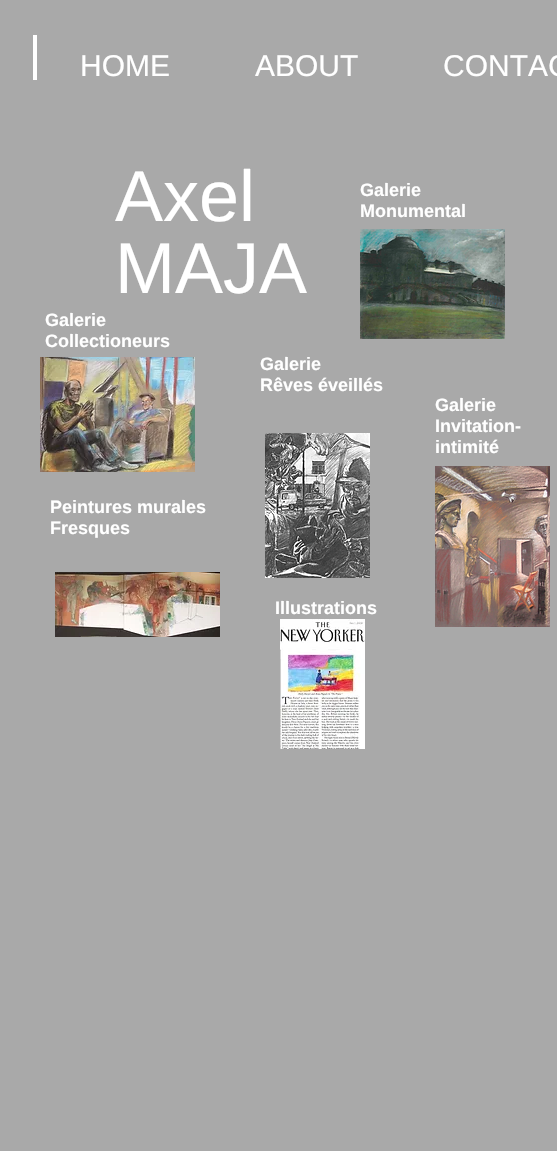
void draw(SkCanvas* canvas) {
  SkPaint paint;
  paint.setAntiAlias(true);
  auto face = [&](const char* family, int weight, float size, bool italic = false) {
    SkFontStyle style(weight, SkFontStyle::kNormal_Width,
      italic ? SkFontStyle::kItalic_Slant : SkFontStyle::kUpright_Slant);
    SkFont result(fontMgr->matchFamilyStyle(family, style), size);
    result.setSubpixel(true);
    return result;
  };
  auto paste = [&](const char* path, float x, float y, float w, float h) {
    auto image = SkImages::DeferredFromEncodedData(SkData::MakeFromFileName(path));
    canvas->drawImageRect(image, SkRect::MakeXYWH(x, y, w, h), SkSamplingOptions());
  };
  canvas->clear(0xffa9a9a9);
  paint.setColor(0xffffffff);
  canvas->drawRect(SkRect::MakeXYWH(33, 35, 4, 45), paint);
  paste("img/1.png", 360, 229, 145, 110);
  paste("img/2.png", 40, 357, 155, 115);
  paste("img/3.png", 265, 433, 105, 145);
  paste("img/4.png", 435, 466, 115, 161);
  paste("img/5.png", 55, 572, 165, 65);
  paste("img/6.png", 280, 619, 85, 130);
  auto f0 = face("Liberation Sans", 400, 30);
  {
    const struct { const char* s; float x, y; } items[] = {
      {"HOME", 80, 76},
      {"ABOUT", 255, 76},
      {"CONTAC", 443, 76},
    };
    for (auto [s, x, y] : items) {
      canvas->drawString(s, x, y, f0, paint);
    }
  }
  auto f1 = face("Liberation Sans", 400, 72);
  canvas->drawString("Axel", 115, 221, f1, paint);
  canvas->drawString("MAJA", 115, 293, f1, paint);
  auto f2 = face("Liberation Sans", 700, 18);
  {
    const struct { const char* s; float x, y; } items[] = {
      {"Galerie", 360, 196},
      {"Monumental", 360, 217},
      {"Galerie", 45, 326},
      {"Collectioneurs", 45, 347},
      {"Galerie", 260, 370},
      {"Rêves éveillés", 260, 391},
      {"Galerie", 435, 411},
      {"Invitation-", 435, 432},
      {"intimité", 435, 453},
      {"Peintures murales", 50, 513},
      {"Fresques", 50, 534},
      {"Illustrations", 275, 614},
    };
    for (auto [s, x, y] : items) {
      canvas->drawString(s, x, y, f2, paint);
    }
  }
}
